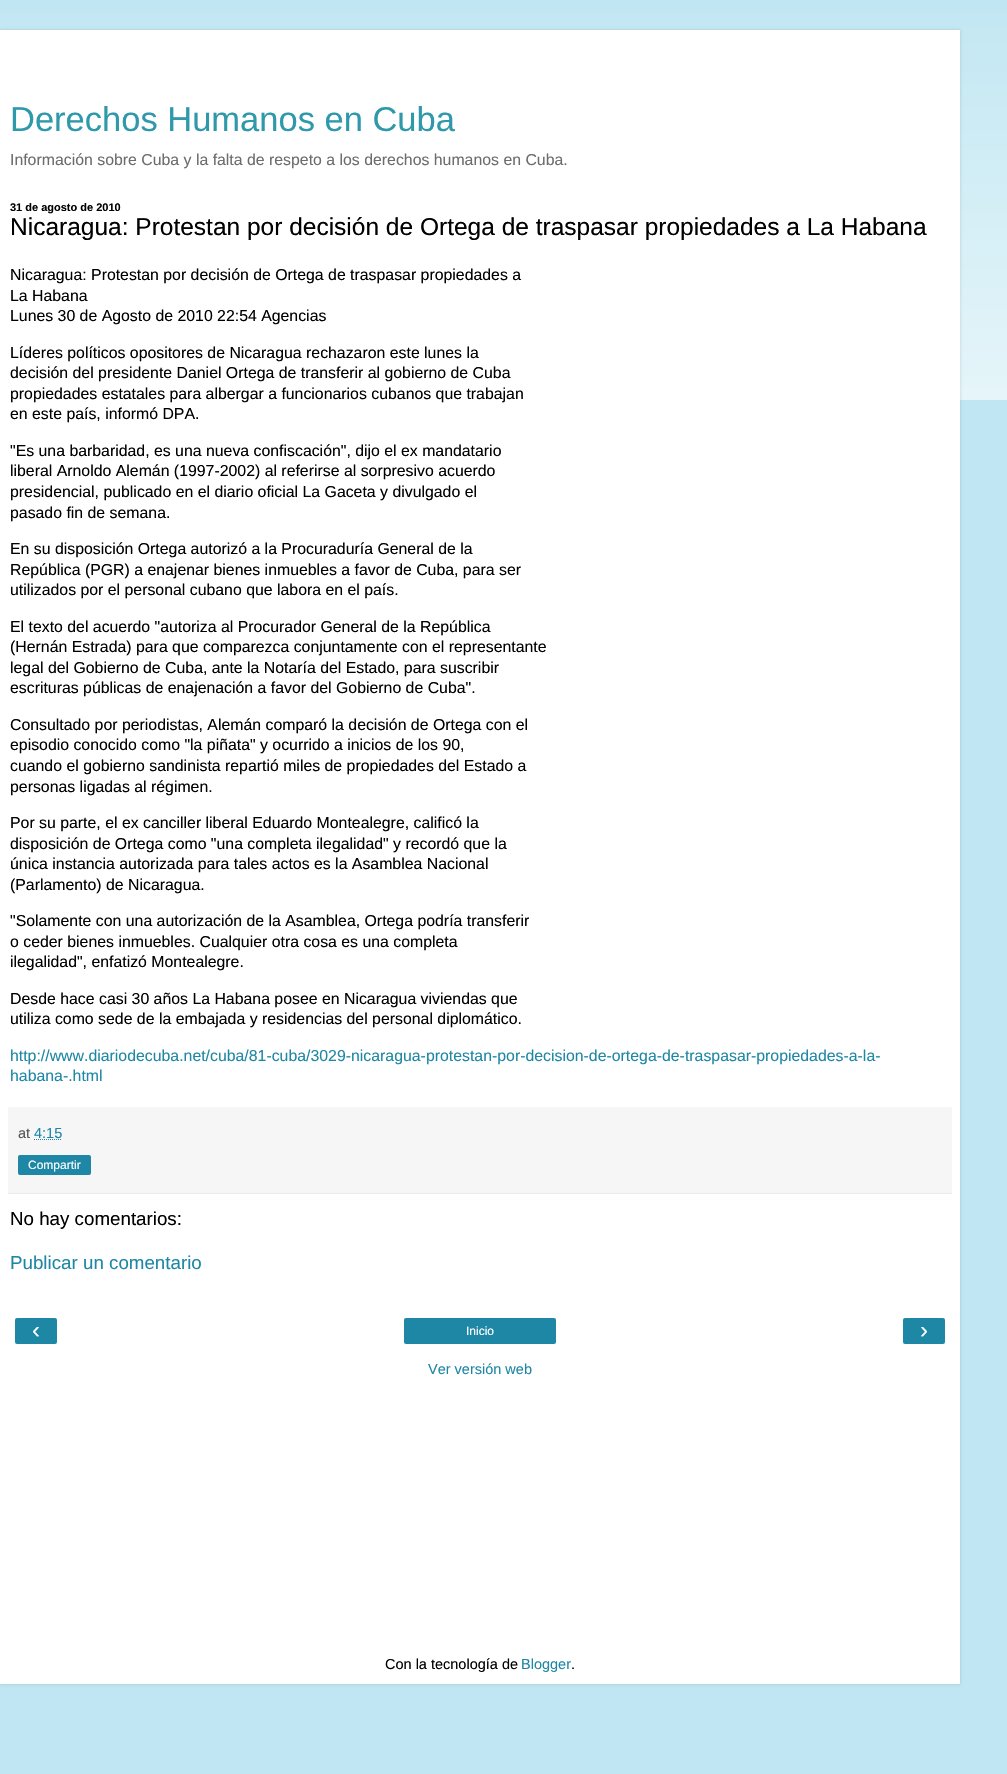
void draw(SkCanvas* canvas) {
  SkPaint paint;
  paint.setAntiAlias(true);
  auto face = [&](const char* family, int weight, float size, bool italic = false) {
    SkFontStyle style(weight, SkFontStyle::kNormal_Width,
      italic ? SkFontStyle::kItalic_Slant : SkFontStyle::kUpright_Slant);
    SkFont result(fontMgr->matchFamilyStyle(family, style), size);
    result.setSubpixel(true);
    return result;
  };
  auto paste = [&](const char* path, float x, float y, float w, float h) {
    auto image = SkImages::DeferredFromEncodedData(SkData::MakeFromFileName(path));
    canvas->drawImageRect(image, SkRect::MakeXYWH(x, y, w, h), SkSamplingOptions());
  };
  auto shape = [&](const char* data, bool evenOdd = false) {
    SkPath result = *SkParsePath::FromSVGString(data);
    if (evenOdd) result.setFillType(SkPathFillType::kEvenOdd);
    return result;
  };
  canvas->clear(0xffbfe6f2);
  paste("img/1.png", 0, 7, 1007, 393);
  paint.setColor(0x26000000);
  paint.setMaskFilter(SkMaskFilter::MakeBlur(kNormal_SkBlurStyle, 1.5f));
  canvas->drawRect(SkRect::MakeXYWH(0, 30, 960, 1654), paint);
  paint.setMaskFilter(nullptr);
  {
    const struct { float x, y, w, h; SkColor color; } items[] = {
      {0, 30, 960, 1654, 0xffffffff},
      {8, 1107, 944, 86, 0xfff6f6f6},
      {8, 1193, 944, 1, 0xffebebeb},
    };
    for (auto [x, y, w, h, color] : items) {
      paint.setColor(color);
      canvas->drawRect(SkRect::MakeXYWH(x, y, w, h), paint);
    }
  }
  paint.setStroke(true);
  paint.setStrokeWidth(1);
  paint.setColor(0xff1e87a5);
  paint.setPathEffect(SkDashPathEffect::Make({{1, 1}}, 0));
  canvas->drawPath(shape("M34 1139.5H62"), paint);
  paint.setPathEffect(nullptr);
  paint.setStroke(false);
  canvas->drawRoundRect(SkRect::MakeXYWH(18, 1155, 73, 20), 2, 2, paint);
  canvas->drawRoundRect(SkRect::MakeXYWH(15, 1318, 42, 26), 2, 2, paint);
  canvas->drawRoundRect(SkRect::MakeXYWH(404, 1318, 152, 26), 2, 2, paint);
  canvas->drawRoundRect(SkRect::MakeXYWH(903, 1318, 42, 26), 2, 2, paint);
  auto f0 = face("Liberation Sans", 400, 34.5f);
  paint.setColor(0xff2e99aa);
  canvas->drawString("Derechos Humanos en Cuba", 10, 131, f0, paint);
  auto f1 = face("Liberation Sans", 400, 15.85f);
  paint.setColor(0xff6c6c6c);
  canvas->drawString("Información sobre Cuba y la falta de respeto a los derechos humanos en Cuba.", 10, 165, f1, paint);
  auto f2 = face("Liberation Sans", 700, 11);
  paint.setColor(0xff000000);
  canvas->drawString("31 de agosto de 2010", 10, 211, f2, paint);
  auto f3 = face("Liberation Sans", 400, 24.5f);
  canvas->drawString("Nicaragua: Protestan por decisión de Ortega de traspasar propiedades a La Habana", 10, 235, f3, paint);
  {
    const struct { const char* s; float x, y; } items[] = {
      {"Nicaragua: Protestan por decisión de Ortega de traspasar propiedades a", 10, 280},
      {"La Habana", 10, 301},
      {"Lunes 30 de Agosto de 2010 22:54 Agencias", 10, 321},
      {"Líderes políticos opositores de Nicaragua rechazaron este lunes la", 10, 358},
      {"decisión del presidente Daniel Ortega de transferir al gobierno de Cuba", 10, 378},
      {"propiedades estatales para albergar a funcionarios cubanos que trabajan", 10, 399},
      {"en este país, informó DPA.", 10, 419},
      {"\"Es una barbaridad, es una nueva confiscación\", dijo el ex mandatario", 10, 456},
      {"liberal Arnoldo Alemán (1997-2002) al referirse al sorpresivo acuerdo", 10, 476},
      {"presidencial, publicado en el diario oficial La Gaceta y divulgado el", 10, 497},
      {"pasado fin de semana.", 10, 518},
      {"En su disposición Ortega autorizó a la Procuraduría General de la", 10, 554},
      {"República (PGR) a enajenar bienes inmuebles a favor de Cuba, para ser", 10, 575},
      {"utilizados por el personal cubano que labora en el país.", 10, 595},
      {"El texto del acuerdo \"autoriza al Procurador General de la República", 10, 632},
      {"(Hernán Estrada) para que comparezca conjuntamente con el representante", 10, 652},
      {"legal del Gobierno de Cuba, ante la Notaría del Estado, para suscribir", 10, 673},
      {"escrituras públicas de enajenación a favor del Gobierno de Cuba\".", 10, 693},
      {"Consultado por periodistas, Alemán comparó la decisión de Ortega con el", 10, 730},
      {"episodio conocido como \"la piñata\" y ocurrido a inicios de los 90,", 10, 750},
      {"cuando el gobierno sandinista repartió miles de propiedades del Estado a", 10, 771},
      {"personas ligadas al régimen.", 10, 792},
      {"Por su parte, el ex canciller liberal Eduardo Montealegre, calificó la", 10, 828},
      {"disposición de Ortega como \"una completa ilegalidad\" y recordó que la", 10, 849},
      {"única instancia autorizada para tales actos es la Asamblea Nacional", 10, 869},
      {"(Parlamento) de Nicaragua.", 10, 890},
      {"\"Solamente con una autorización de la Asamblea, Ortega podría transferir", 10, 926},
      {"o ceder bienes inmuebles. Cualquier otra cosa es una completa", 10, 947},
      {"ilegalidad\", enfatizó Montealegre.", 10, 967},
      {"Desde hace casi 30 años La Habana posee en Nicaragua viviendas que", 10, 1004},
      {"utiliza como sede de la embajada y residencias del personal diplomático.", 10, 1024},
    };
    for (auto [s, x, y] : items) {
      canvas->drawString(s, x, y, f1, paint);
    }
  }
  paint.setColor(0xff1e87a5);
  canvas->drawString("http://www.diariodecuba.net/cuba/81-cuba/3029-nicaragua-protestan-por-decision-de-ortega-de-traspasar-propiedades-a-la-", 10, 1061, f1, paint);
  canvas->drawString("habana-.html", 10, 1081, f1, paint);
  auto f4 = face("Liberation Sans", 400, 14.5f);
  paint.setColor(0xff565656);
  canvas->drawString("at", 18, 1138, f4, paint);
  paint.setColor(0xff1e87a5);
  canvas->drawString("4:15", 34, 1138, f4, paint);
  auto f5 = face("Liberation Sans", 400, 12);
  paint.setColor(0xffffffff);
  canvas->drawString("Compartir", 28, 1169, f5, paint);
  auto f6 = face("Liberation Sans", 400, 18.75f);
  paint.setColor(0xff000000);
  canvas->drawString("No hay comentarios:", 10, 1225, f6, paint);
  paint.setColor(0xff1e87a5);
  canvas->drawString("Publicar un comentario", 10, 1269, f6, paint);
  auto f7 = face("Liberation Sans", 400, 24);
  paint.setColor(0xffffffff);
  canvas->drawString("‹", 32, 1338, f7, paint);
  canvas->drawString("Inicio", 466, 1335, f5, paint);
  canvas->drawString("›", 920, 1338, f7, paint);
  paint.setColor(0xff1e87a5);
  canvas->drawString("Ver versión web", 428, 1374, f4, paint);
  paint.setColor(0xff000000);
  canvas->drawString("Con la tecnología de", 385, 1669, f4, paint);
  paint.setColor(0xff1e87a5);
  canvas->drawString("Blogger", 521, 1669, f4, paint);
  paint.setColor(0xff000000);
  canvas->drawString(".", 571, 1669, f4, paint);
}
